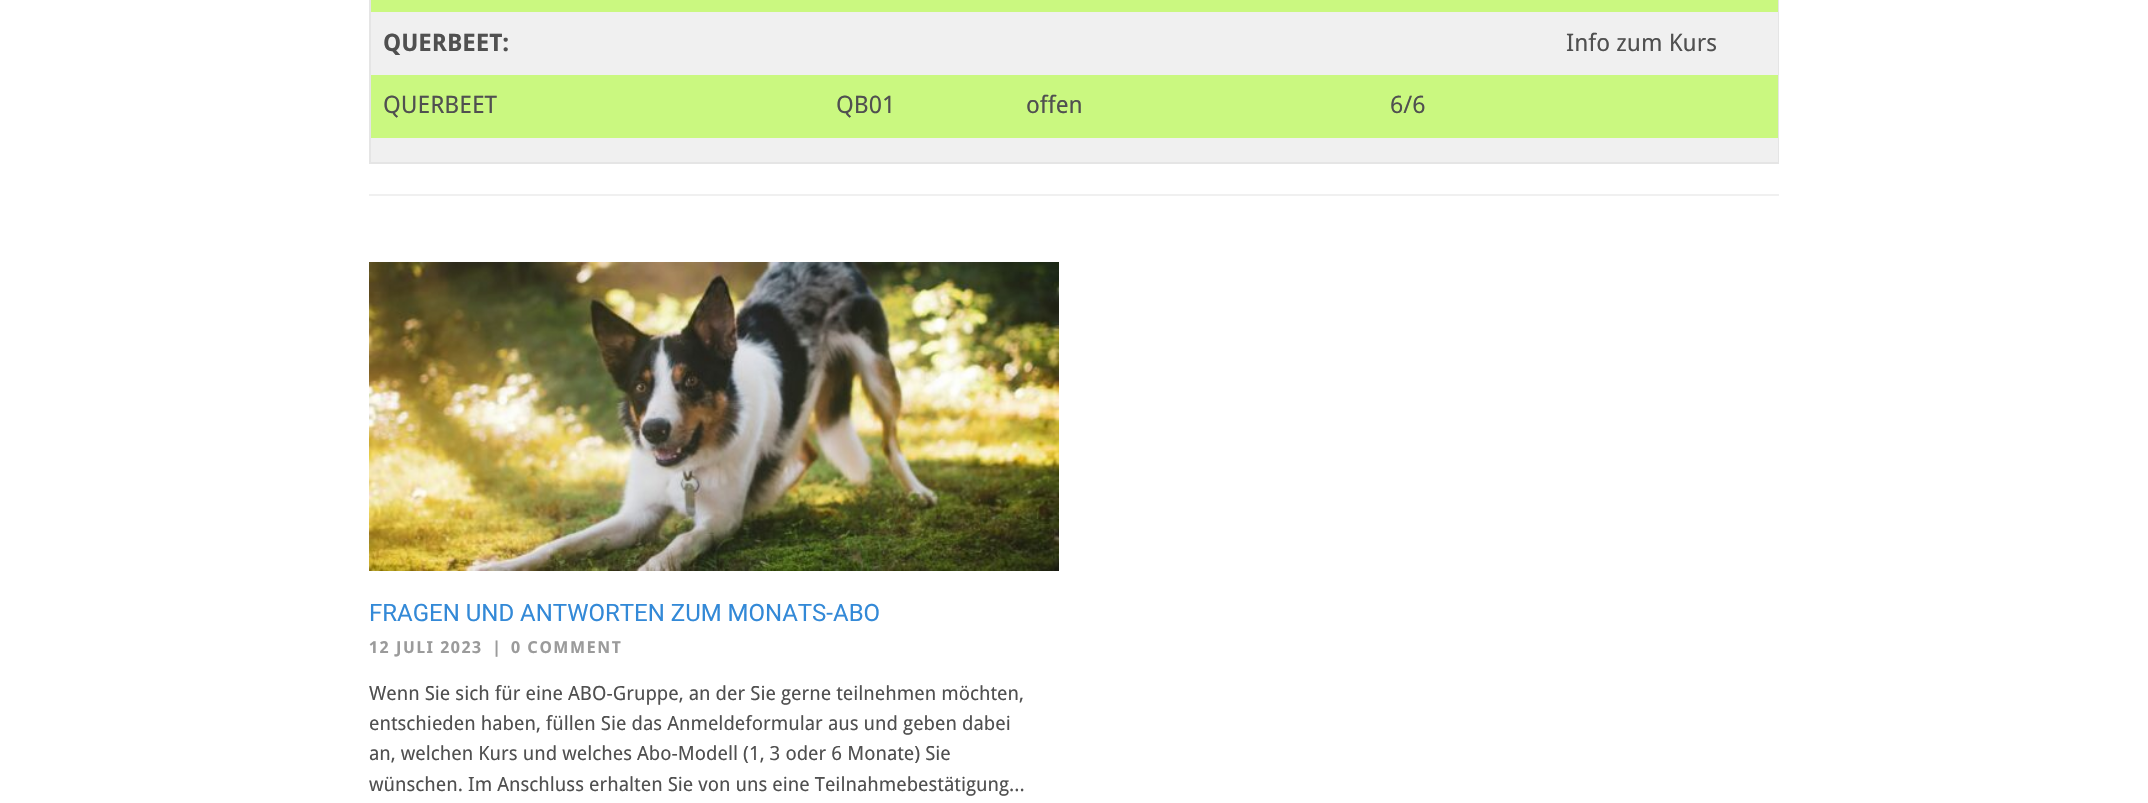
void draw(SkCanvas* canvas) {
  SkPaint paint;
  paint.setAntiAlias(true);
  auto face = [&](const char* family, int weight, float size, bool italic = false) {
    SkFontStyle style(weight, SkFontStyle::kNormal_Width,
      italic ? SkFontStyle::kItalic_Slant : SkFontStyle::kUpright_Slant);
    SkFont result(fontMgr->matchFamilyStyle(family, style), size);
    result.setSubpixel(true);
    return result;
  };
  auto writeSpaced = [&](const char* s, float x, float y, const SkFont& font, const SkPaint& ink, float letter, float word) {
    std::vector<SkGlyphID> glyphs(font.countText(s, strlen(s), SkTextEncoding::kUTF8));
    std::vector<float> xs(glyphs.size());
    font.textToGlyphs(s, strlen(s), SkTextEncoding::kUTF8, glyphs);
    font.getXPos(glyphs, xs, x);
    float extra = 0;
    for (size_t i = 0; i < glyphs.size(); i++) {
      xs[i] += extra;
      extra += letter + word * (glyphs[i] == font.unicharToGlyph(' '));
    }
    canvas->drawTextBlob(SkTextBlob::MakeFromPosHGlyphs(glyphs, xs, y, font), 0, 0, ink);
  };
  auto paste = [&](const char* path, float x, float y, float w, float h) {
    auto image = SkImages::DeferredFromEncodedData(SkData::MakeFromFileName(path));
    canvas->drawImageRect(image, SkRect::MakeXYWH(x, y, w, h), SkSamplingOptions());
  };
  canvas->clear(0xffffffff);
  paint.setColor(0xfff0f0f0);
  canvas->drawRect(SkRect::MakeXYWH(369, 194, 1410, 2), paint);
  {
    const SkColor colors[] = {0xffcaf880, 0xff71ce7e};
    const float stops[] = {1, 1};
    const SkPoint ends[] = {{276, -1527}, {1872, 68}};
    paint.setShader(SkGradientShader::MakeLinear(ends, colors, stops, 2, SkTileMode::kClamp));
    paint.setAlpha(255);
  }
  canvas->drawRect(SkRect::MakeXYWH(371, 0, 1407, 138), paint);
  paint.setShader(nullptr);
  {
    const struct { float x, y, w, h; SkColor color; } items[] = {
      {1778, 0, 1, 164, 0xffe5e5e5},
      {369, 162, 1410, 2, 0xffe5e5e5},
      {369, 0, 2, 164, 0xffe5e5e5},
      {371, 12, 1407, 63, 0xfff0f0f0},
      {371, 138, 1407, 24, 0xfff0f0f0},
    };
    for (auto [x, y, w, h, color] : items) {
      paint.setColor(color);
      canvas->drawRect(SkRect::MakeXYWH(x, y, w, h), paint);
    }
  }
  paste("img/1.png", 369, 262, 690, 309);
  auto f0 = face("Droid Sans", 700, 24);
  paint.setColor(0xff505050);
  canvas->drawString("QUERBEET:", 383, 51, f0, paint);
  auto f1 = face("Droid Sans", 400, 24);
  {
    const struct { const char* s; float x, y; } items[] = {
      {"Info zum Kurs", 1566, 51},
      {"QUERBEET", 383, 113},
      {"QB01", 836, 113},
      {"offen", 1026, 113},
      {"6/6", 1390, 113},
    };
    for (auto [s, x, y] : items) {
      canvas->drawString(s, x, y, f1, paint);
    }
  }
  auto f2 = face("Roboto", 400, 24);
  paint.setColor(0xff3389d7);
  canvas->drawString("FRAGEN UND ANTWORTEN ZUM MONATS-ABO", 369, 621, f2, paint);
  auto f3 = face("Droid Sans", 700, 16.5f);
  paint.setColor(0xff9b9b9b);
  {
    const struct { const char* s; float x, y; } items[] = {
      {"12 JULI 2023", 369, 653},
      {"|", 492, 653},
      {"0 COMMENT", 511, 653},
    };
    for (auto [s, x, y] : items) {
      writeSpaced(s, x, y, f3, paint, 1.5f, 0);
    }
  }
  auto f4 = face("Droid Sans", 400, 19.5f);
  paint.setColor(0xff505050);
  {
    const struct { const char* s; float x, y; } items[] = {
      {"Wenn Sie sich für eine ABO-Gruppe, an der Sie gerne teilnehmen möchten,", 369, 700},
      {"entschieden haben, füllen Sie das Anmeldeformular aus und geben dabei", 369, 730},
      {"an, welchen Kurs und welches Abo-Modell (1, 3 oder 6 Monate) Sie", 369, 760},
      {"wünschen. Im Anschluss erhalten Sie von uns eine Teilnahmebestätigung...", 369, 791},
    };
    for (auto [s, x, y] : items) {
      canvas->drawString(s, x, y, f4, paint);
    }
  }
}
